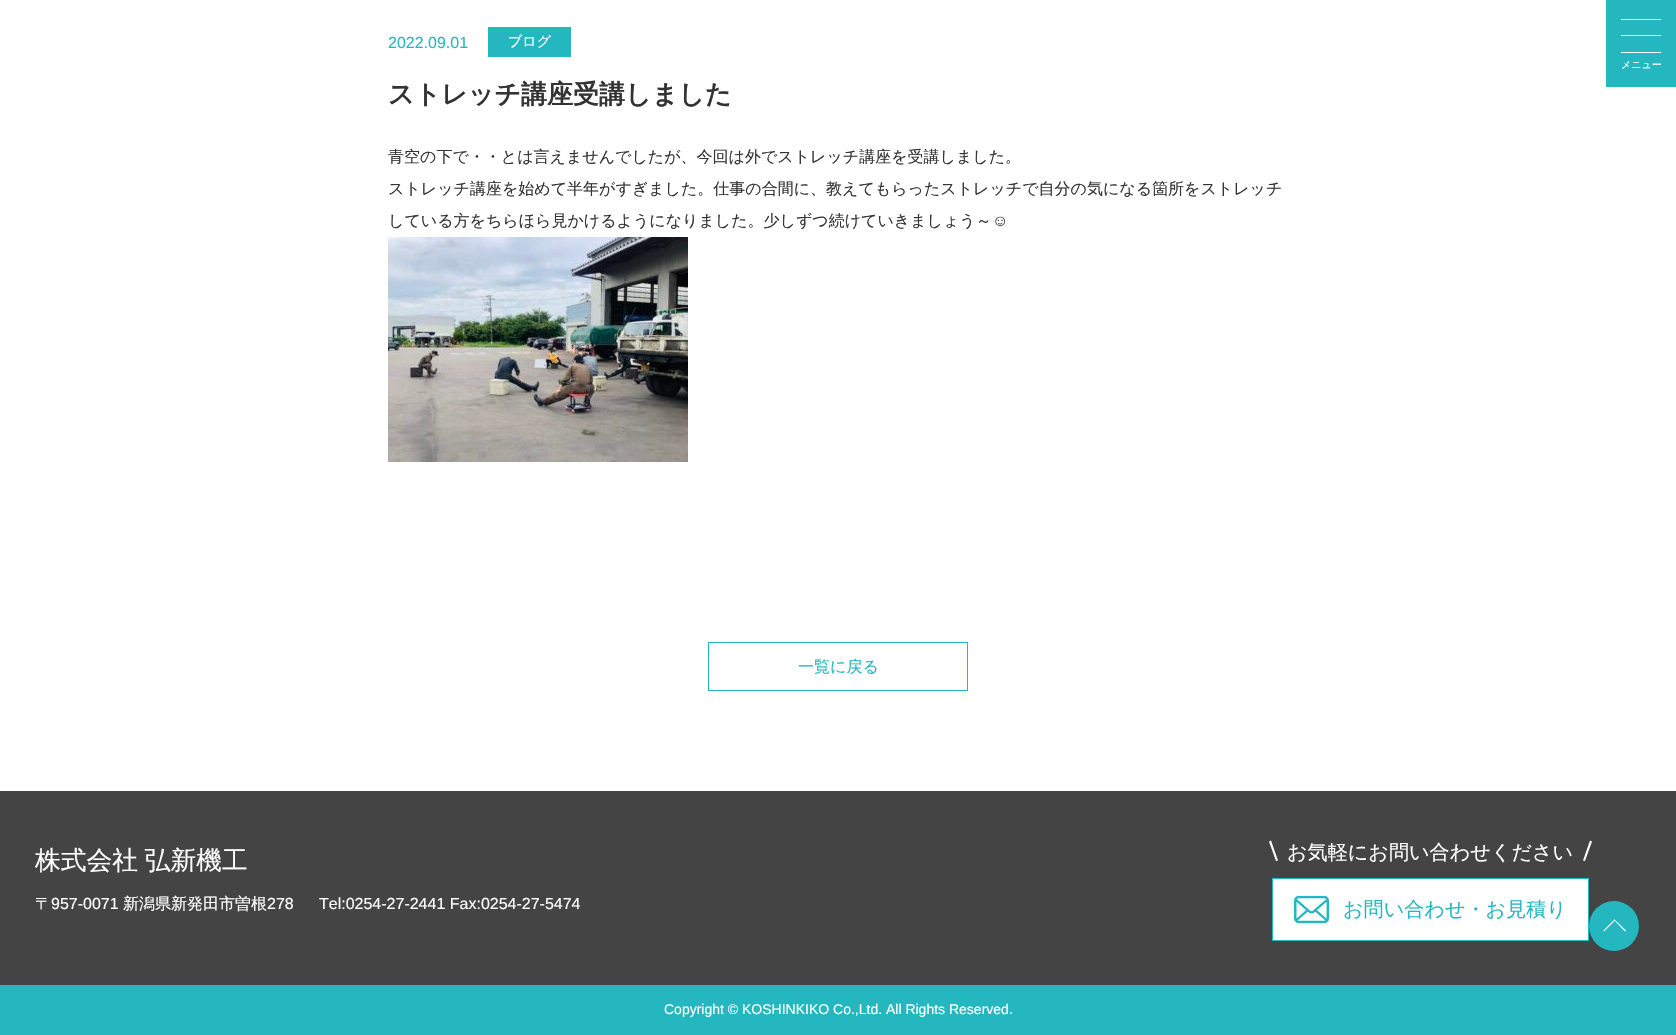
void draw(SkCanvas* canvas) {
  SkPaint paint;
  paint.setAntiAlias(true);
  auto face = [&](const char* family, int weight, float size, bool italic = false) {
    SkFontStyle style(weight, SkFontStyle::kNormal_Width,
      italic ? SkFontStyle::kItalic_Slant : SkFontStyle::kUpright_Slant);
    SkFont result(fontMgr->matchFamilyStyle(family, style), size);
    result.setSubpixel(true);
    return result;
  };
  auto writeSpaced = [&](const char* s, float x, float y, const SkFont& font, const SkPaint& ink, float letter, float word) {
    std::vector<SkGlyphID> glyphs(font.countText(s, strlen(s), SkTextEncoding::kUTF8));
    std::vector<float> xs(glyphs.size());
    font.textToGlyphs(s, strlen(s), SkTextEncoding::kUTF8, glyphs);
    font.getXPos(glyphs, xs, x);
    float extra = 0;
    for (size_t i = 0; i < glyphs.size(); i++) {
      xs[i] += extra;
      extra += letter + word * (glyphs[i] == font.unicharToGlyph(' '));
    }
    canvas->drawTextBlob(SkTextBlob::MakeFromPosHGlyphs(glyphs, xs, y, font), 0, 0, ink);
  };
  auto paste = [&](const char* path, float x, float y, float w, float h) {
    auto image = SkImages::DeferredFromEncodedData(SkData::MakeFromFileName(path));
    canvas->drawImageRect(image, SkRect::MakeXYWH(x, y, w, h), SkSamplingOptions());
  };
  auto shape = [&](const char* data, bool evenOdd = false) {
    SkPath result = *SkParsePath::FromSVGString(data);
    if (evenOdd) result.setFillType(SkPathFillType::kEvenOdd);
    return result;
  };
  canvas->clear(0xffffffff);
  paint.setColor(0xff25b7c0);
  canvas->drawRect(SkRect::MakeXYWH(488, 27, 83, 30), paint);
  paste("img/1.png", 388, 237, 300, 225);
  paint.setStroke(true);
  paint.setStrokeWidth(1);
  canvas->drawRect(SkRect::MakeXYWH(708.5f, 642.5f, 259, 48), paint);
  paint.setStroke(false);
  {
    const struct { float x, y, w, h; SkColor color; } items[] = {
      {1606, 0, 70, 87, 0xff25b7c0},
      {1621, 19, 40, 1, 0xffffffff},
      {1621, 35, 40, 1, 0xffffffff},
      {1621, 52, 40, 1, 0xffffffff},
      {0, 791, 1676, 194, 0xff444444},
    };
    for (auto [x, y, w, h, color] : items) {
      paint.setColor(color);
      canvas->drawRect(SkRect::MakeXYWH(x, y, w, h), paint);
    }
  }
  paint.setColor(0xffffffff);
  canvas->drawPath(shape("M1278 860.5L1276 861L1269 841.5L1271 840.5Z"), paint);
  canvas->drawPath(shape("M1590 840.5L1592 841.5L1585 861L1583 860.5Z"), paint);
  canvas->drawRect(SkRect::MakeXYWH(1272.5f, 878.5f, 316, 62), paint);
  paint.setStroke(true);
  paint.setColor(0xff25b7c0);
  canvas->drawRect(SkRect::MakeXYWH(1272.5f, 878.5f, 316, 62), paint);
  paste("img/2.png", 1294, 895, 35, 29);
  paint.setStroke(false);
  canvas->drawCircle(1614, 926, 25, paint);
  paint.setColor(0xffffffff);
  canvas->drawPath(shape("M1603.5 930.5L1614.5 919.5L1615.5 920L1604 931.5Z"), paint);
  canvas->drawPath(shape("M1614 920L1614.5 919.5L1626 930.5L1625 931.5Z"), paint);
  paint.setColor(0xff25b7c0);
  canvas->drawRect(SkRect::MakeXYWH(0, 985, 1676, 50), paint);
  auto f0 = face("Liberation Sans", 400, 16);
  canvas->drawString("2022.09.01", 388, 48, f0, paint);
  auto f1 = face("WenQuanYi Zen Hei", 500, 14);
  paint.setColor(0xffffffff);
  canvas->drawString("ブログ", 508, 46, f1, paint);
  auto f2 = face("WenQuanYi Zen Hei", 700, 26);
  paint.setColor(0xff333333);
  canvas->drawString("ストレッチ講座受講しました", 388, 103, f2, paint);
  auto f3 = face("WenQuanYi Zen Hei", 500, 16);
  {
    const struct { const char* s; float x, y; } items[] = {
      {"青空の下で・・とは言えませんでしたが、今回は外でストレッチ講座を受講しました。", 388, 162},
      {"ストレッチ講座を始めて半年がすぎました。仕事の合間に、教えてもらったストレッチで自分の気になる箇所をストレッチ", 388, 194},
      {"している方をちらほら見かけるようになりました。少しずつ続けていきましょう～", 388, 226},
    };
    for (auto [s, x, y] : items) {
      canvas->drawString(s, x, y, f3, paint);
    }
  }
  canvas->drawString("☺", 992, 226, f0, paint);
  paint.setColor(0xff25b7c0);
  canvas->drawString("一覧に戻る", 798, 672, f3, paint);
  auto f4 = face("WenQuanYi Zen Hei", 500, 10);
  paint.setColor(0xffffffff);
  canvas->drawString("メニュー", 1621, 68, f4, paint);
  auto f5 = face("WenQuanYi Zen Hei", 500, 25.75f);
  writeSpaced("株式会社 弘新機工", 35, 869, f5, paint, 0, -1);
  canvas->drawString("〒", 35, 909, f3, paint);
  canvas->drawString("957-0071", 51, 909, f0, paint);
  canvas->drawString("新潟県新発田市曽根", 123, 909, f3, paint);
  canvas->drawString("278", 267, 909, f0, paint);
  canvas->drawString("Tel:0254-27-2441 Fax:0254-27-5474", 319, 909, f0, paint);
  auto f6 = face("WenQuanYi Zen Hei", 500, 20.1f);
  canvas->drawString("お気軽にお問い合わせください", 1287, 859, f6, paint);
  paint.setColor(0xff25b7c0);
  canvas->drawString("お問い合わせ・お見積り", 1343, 916, f6, paint);
  auto f7 = face("Liberation Sans", 400, 14);
  paint.setColor(0xffffffff);
  canvas->drawString("Copyright © KOSHINKIKO Co.,Ltd. All Rights Reserved.", 664, 1014, f7, paint);
}
